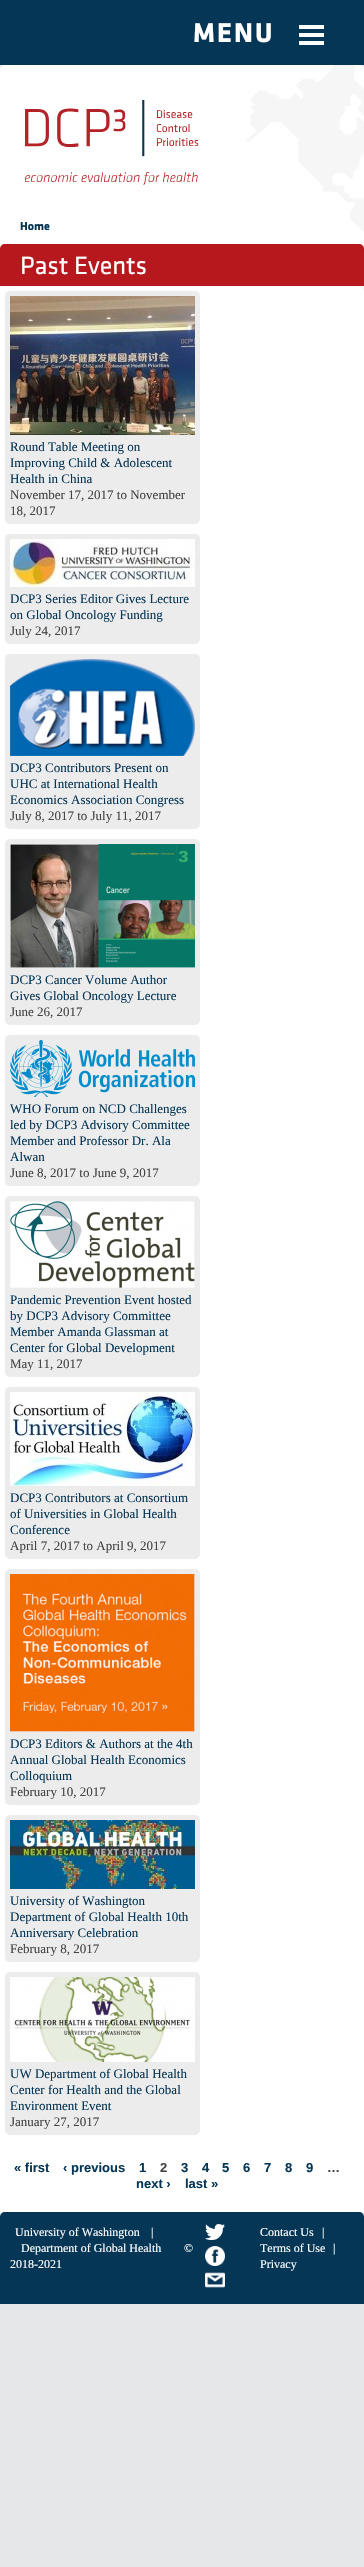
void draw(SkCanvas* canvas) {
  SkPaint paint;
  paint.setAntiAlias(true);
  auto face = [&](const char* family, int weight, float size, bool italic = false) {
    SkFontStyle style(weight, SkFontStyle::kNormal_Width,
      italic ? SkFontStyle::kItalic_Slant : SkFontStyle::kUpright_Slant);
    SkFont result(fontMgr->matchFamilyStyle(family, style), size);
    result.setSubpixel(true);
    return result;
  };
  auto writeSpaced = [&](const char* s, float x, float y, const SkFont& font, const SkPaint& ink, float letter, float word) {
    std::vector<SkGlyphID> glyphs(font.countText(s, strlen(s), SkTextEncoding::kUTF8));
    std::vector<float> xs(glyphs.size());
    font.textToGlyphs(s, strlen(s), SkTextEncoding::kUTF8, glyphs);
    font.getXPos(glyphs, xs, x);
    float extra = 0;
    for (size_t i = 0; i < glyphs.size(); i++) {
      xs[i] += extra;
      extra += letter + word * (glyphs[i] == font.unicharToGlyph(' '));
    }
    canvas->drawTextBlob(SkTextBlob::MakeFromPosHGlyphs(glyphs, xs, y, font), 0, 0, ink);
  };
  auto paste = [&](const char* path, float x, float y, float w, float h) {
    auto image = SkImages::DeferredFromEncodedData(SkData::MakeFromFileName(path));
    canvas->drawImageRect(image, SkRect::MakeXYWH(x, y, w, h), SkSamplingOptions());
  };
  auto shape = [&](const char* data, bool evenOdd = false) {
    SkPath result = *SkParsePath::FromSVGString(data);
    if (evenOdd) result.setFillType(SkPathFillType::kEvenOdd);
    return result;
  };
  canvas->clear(0xffe6e7e8);
  {
    const struct { float x, y, w, h; SkColor color; } items[] = {
      {0, 0, 364, 65, 0xff063655},
      {299, 41, 25, 4, 0xffffffff},
      {299, 33, 25, 4, 0xffffffff},
      {299, 25, 25, 4, 0xffffffff},
    };
    for (auto [x, y, w, h, color] : items) {
      paint.setColor(color);
      canvas->drawRect(SkRect::MakeXYWH(x, y, w, h), paint);
    }
  }
  canvas->drawPath(shape("M5 65H359C362 65 364 67 364 70V2304H0V70C0 67 2 65 5 65Z"), paint);
  paste("img/1.png", 246, 65, 118, 225);
  paste("img/2.png", 24, 100, 175, 85);
  paint.setColor(0xffb6181e);
  canvas->drawPath(shape("M5 244H359C362 244 364 246 364 249V286H0V249C0 246 2 244 5 244Z"), paint);
  paint.setColor(0xffececec);
  canvas->drawRoundRect(SkRect::MakeXYWH(5, 291, 195, 233), 5, 5, paint);
  paste("img/3.png", 10, 296, 185, 139);
  canvas->drawRoundRect(SkRect::MakeXYWH(5, 534, 195, 110), 5, 5, paint);
  paste("img/4.png", 10, 539, 185, 48);
  canvas->drawRoundRect(SkRect::MakeXYWH(5, 654, 195, 175), 5, 5, paint);
  paste("img/5.png", 10, 659, 185, 97);
  canvas->drawRoundRect(SkRect::MakeXYWH(5, 839, 195, 186), 5, 5, paint);
  paste("img/6.png", 10, 844, 185, 124);
  canvas->drawRoundRect(SkRect::MakeXYWH(5, 1035, 195, 151), 5, 5, paint);
  paste("img/7.png", 10, 1040, 185, 57);
  canvas->drawRoundRect(SkRect::MakeXYWH(5, 1196, 195, 181), 5, 5, paint);
  paste("img/8.png", 10, 1201, 185, 87);
  canvas->drawRoundRect(SkRect::MakeXYWH(5, 1387, 195, 172), 5, 5, paint);
  paste("img/9.png", 10, 1392, 185, 94);
  canvas->drawRoundRect(SkRect::MakeXYWH(5, 1569, 195, 236), 5, 5, paint);
  paste("img/10.png", 10, 1574, 185, 158);
  canvas->drawRoundRect(SkRect::MakeXYWH(5, 1815, 195, 147), 5, 5, paint);
  paste("img/11.png", 10, 1820, 185, 69);
  canvas->drawRoundRect(SkRect::MakeXYWH(5, 1972, 195, 163), 5, 5, paint);
  paste("img/12.png", 10, 1977, 185, 85);
  paint.setColor(0xff063655);
  canvas->drawPath(shape("M5 2212H359C362 2212 364 2214 364 2217V2304H0V2217C0 2214 2 2212 5 2212Z"), paint);
  paste("img/13.png", 205, 2224, 20, 16);
  paste("img/14.png", 205, 2246, 20, 20);
  paste("img/15.png", 205, 2272, 20, 16);
  auto f0 = face("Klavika", 700, 28);
  paint.setColor(0xffffffff);
  writeSpaced("MENU", 193, 42, f0, paint, 2, 0);
  auto f1 = face("Klavika", 700, 12);
  paint.setColor(0xff063655);
  canvas->drawString("Home", 20, 230, f1, paint);
  auto f2 = face("Klavika", 400, 26);
  paint.setColor(0xffffffff);
  canvas->drawString("Past Events", 20, 274, f2, paint);
  auto f3 = face("Liberation Serif", 400, 13);
  paint.setColor(0xff063655);
  {
    const struct { const char* s; float x, y; } items[] = {
      {"Round Table Meeting on", 10, 451},
      {"Improving Child & Adolescent", 10, 467},
      {"Health in China", 10, 483},
    };
    for (auto [s, x, y] : items) {
      canvas->drawString(s, x, y, f3, paint);
    }
  }
  paint.setColor(0xff444444);
  canvas->drawString("November 17, 2017 to November", 10, 499, f3, paint);
  canvas->drawString("18, 2017", 10, 515, f3, paint);
  paint.setColor(0xff063655);
  canvas->drawString("DCP3 Series Editor Gives Lecture", 10, 603, f3, paint);
  canvas->drawString("on Global Oncology Funding", 10, 619, f3, paint);
  paint.setColor(0xff444444);
  canvas->drawString("July 24, 2017", 10, 635, f3, paint);
  paint.setColor(0xff063655);
  {
    const struct { const char* s; float x, y; } items[] = {
      {"DCP3 Contributors Present on", 10, 772},
      {"UHC at International Health", 10, 788},
      {"Economics Association Congress", 10, 804},
    };
    for (auto [s, x, y] : items) {
      canvas->drawString(s, x, y, f3, paint);
    }
  }
  paint.setColor(0xff444444);
  canvas->drawString("July 8, 2017 to July 11, 2017", 10, 820, f3, paint);
  paint.setColor(0xff063655);
  canvas->drawString("DCP3 Cancer Volume Author", 10, 984, f3, paint);
  canvas->drawString("Gives Global Oncology Lecture", 10, 1000, f3, paint);
  paint.setColor(0xff444444);
  canvas->drawString("June 26, 2017", 10, 1016, f3, paint);
  paint.setColor(0xff063655);
  {
    const struct { const char* s; float x, y; } items[] = {
      {"WHO Forum on NCD Challenges", 10, 1113},
      {"led by DCP3 Advisory Committee", 10, 1129},
      {"Member and Professor Dr. Ala", 10, 1145},
      {"Alwan", 10, 1161},
    };
    for (auto [s, x, y] : items) {
      canvas->drawString(s, x, y, f3, paint);
    }
  }
  paint.setColor(0xff444444);
  canvas->drawString("June 8, 2017 to June 9, 2017", 10, 1177, f3, paint);
  paint.setColor(0xff063655);
  {
    const struct { const char* s; float x, y; } items[] = {
      {"Pandemic Prevention Event hosted", 10, 1304},
      {"by DCP3 Advisory Committee", 10, 1320},
      {"Member Amanda Glassman at", 10, 1336},
      {"Center for Global Development", 10, 1352},
    };
    for (auto [s, x, y] : items) {
      canvas->drawString(s, x, y, f3, paint);
    }
  }
  paint.setColor(0xff444444);
  canvas->drawString("May 11, 2017", 10, 1368, f3, paint);
  paint.setColor(0xff063655);
  {
    const struct { const char* s; float x, y; } items[] = {
      {"DCP3 Contributors at Consortium", 10, 1502},
      {"of Universities in Global Health", 10, 1518},
      {"Conference", 10, 1534},
    };
    for (auto [s, x, y] : items) {
      canvas->drawString(s, x, y, f3, paint);
    }
  }
  paint.setColor(0xff444444);
  canvas->drawString("April 7, 2017 to April 9, 2017", 10, 1550, f3, paint);
  paint.setColor(0xff063655);
  {
    const struct { const char* s; float x, y; } items[] = {
      {"DCP3 Editors & Authors at the 4th", 10, 1748},
      {"Annual Global Health Economics", 10, 1764},
      {"Colloquium", 10, 1780},
    };
    for (auto [s, x, y] : items) {
      canvas->drawString(s, x, y, f3, paint);
    }
  }
  paint.setColor(0xff444444);
  canvas->drawString("February 10, 2017", 10, 1796, f3, paint);
  paint.setColor(0xff063655);
  {
    const struct { const char* s; float x, y; } items[] = {
      {"University of Washington", 10, 1905},
      {"Department of Global Health 10th", 10, 1921},
      {"Anniversary Celebration", 10, 1937},
    };
    for (auto [s, x, y] : items) {
      canvas->drawString(s, x, y, f3, paint);
    }
  }
  paint.setColor(0xff444444);
  canvas->drawString("February 8, 2017", 10, 1953, f3, paint);
  paint.setColor(0xff063655);
  {
    const struct { const char* s; float x, y; } items[] = {
      {"UW Department of Global Health", 10, 2078},
      {"Center for Health and the Global", 10, 2094},
      {"Environment Event", 10, 2110},
    };
    for (auto [s, x, y] : items) {
      canvas->drawString(s, x, y, f3, paint);
    }
  }
  paint.setColor(0xff444444);
  canvas->drawString("January 27, 2017", 10, 2126, f3, paint);
  auto f4 = face("Liberation Sans", 700, 13);
  paint.setColor(0xff063655);
  {
    const struct { const char* s; float x, y; } items[] = {
      {"« first", 14, 2172},
      {"‹ previous", 63, 2172},
      {"1", 139, 2172},
    };
    for (auto [s, x, y] : items) {
      canvas->drawString(s, x, y, f4, paint);
    }
  }
  paint.setColor(0xff444444);
  canvas->drawString("2", 160, 2172, f4, paint);
  paint.setColor(0xff063655);
  {
    const struct { const char* s; float x, y; } items[] = {
      {"3", 181, 2172},
      {"4", 202, 2172},
      {"5", 222, 2172},
      {"6", 243, 2172},
      {"7", 264, 2172},
      {"8", 285, 2172},
      {"9", 306, 2172},
    };
    for (auto [s, x, y] : items) {
      canvas->drawString(s, x, y, f4, paint);
    }
  }
  paint.setColor(0xff444444);
  canvas->drawString("…", 327, 2172, f4, paint);
  paint.setColor(0xff063655);
  canvas->drawString("next ›", 136, 2188, f4, paint);
  canvas->drawString("last »", 185, 2188, f4, paint);
  auto f5 = face("Liberation Serif", 400, 12);
  paint.setColor(0xffffffff);
  {
    const struct { const char* s; float x, y; } items[] = {
      {"University of Washington", 15, 2236},
      {"|", 151, 2236},
      {"Department of Global Health", 21, 2252},
      {"©", 184, 2252},
      {"2018-2021", 10, 2268},
      {"Contact Us", 260, 2236},
      {"|", 322, 2236},
      {"Terms of Use", 260, 2252},
      {"|", 333, 2252},
      {"Privacy", 260, 2268},
    };
    for (auto [s, x, y] : items) {
      canvas->drawString(s, x, y, f5, paint);
    }
  }
}
